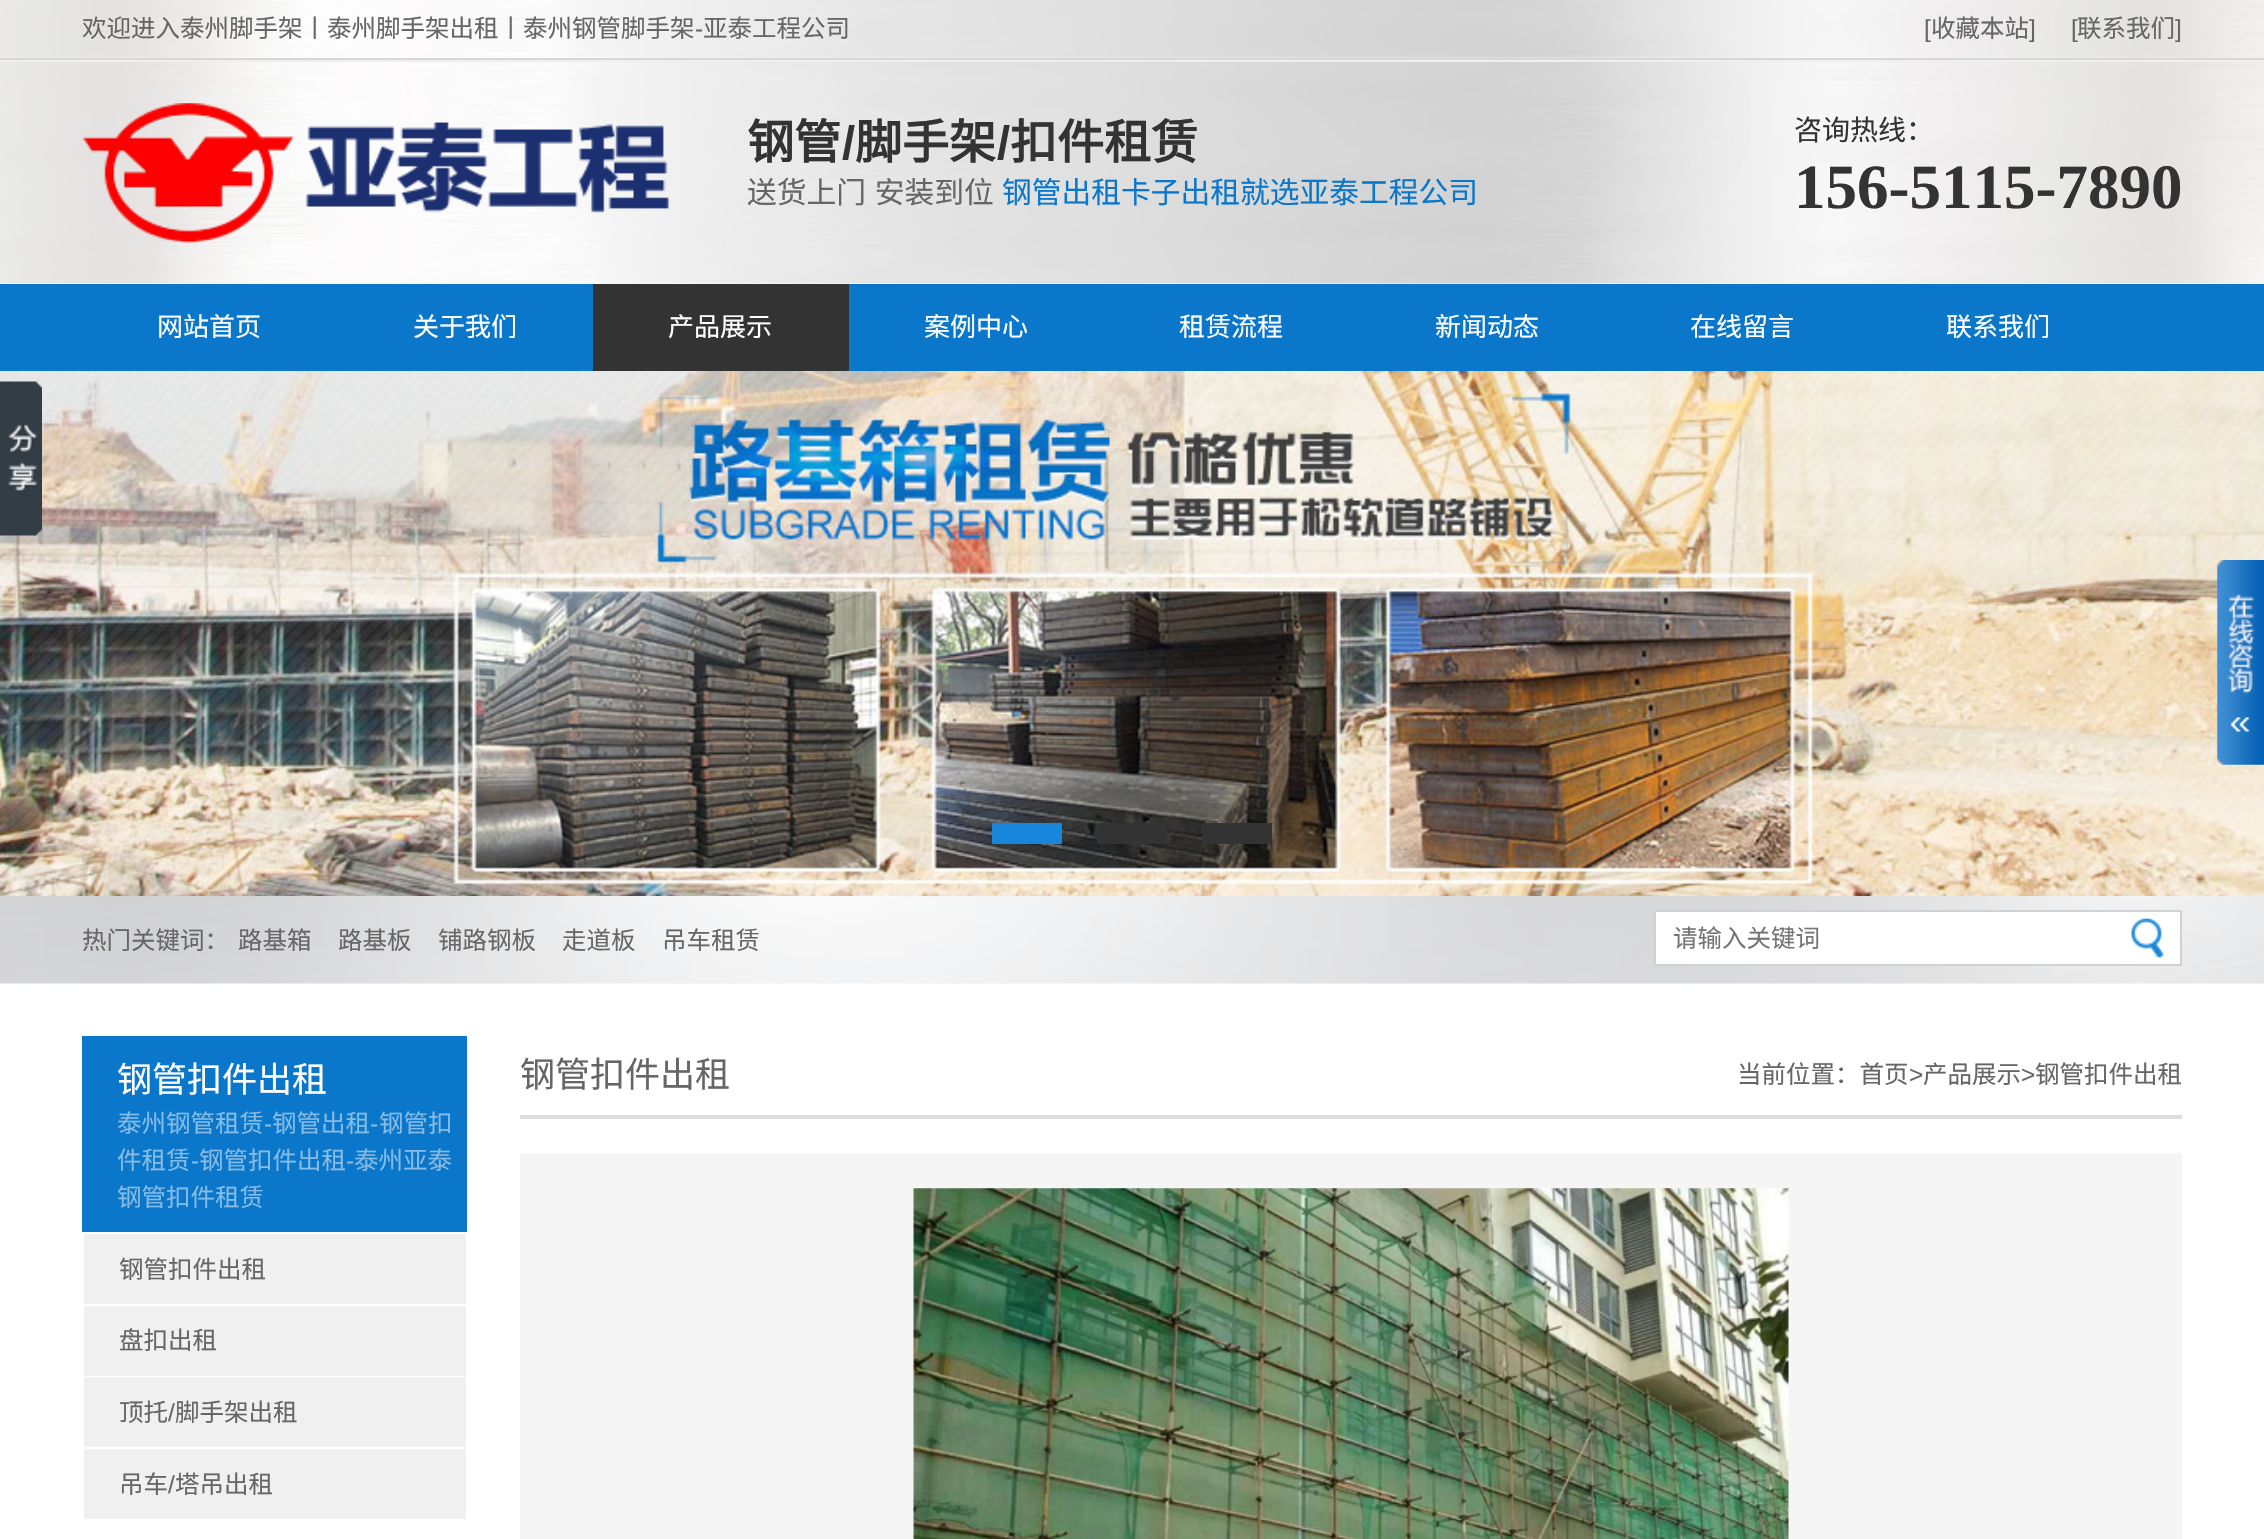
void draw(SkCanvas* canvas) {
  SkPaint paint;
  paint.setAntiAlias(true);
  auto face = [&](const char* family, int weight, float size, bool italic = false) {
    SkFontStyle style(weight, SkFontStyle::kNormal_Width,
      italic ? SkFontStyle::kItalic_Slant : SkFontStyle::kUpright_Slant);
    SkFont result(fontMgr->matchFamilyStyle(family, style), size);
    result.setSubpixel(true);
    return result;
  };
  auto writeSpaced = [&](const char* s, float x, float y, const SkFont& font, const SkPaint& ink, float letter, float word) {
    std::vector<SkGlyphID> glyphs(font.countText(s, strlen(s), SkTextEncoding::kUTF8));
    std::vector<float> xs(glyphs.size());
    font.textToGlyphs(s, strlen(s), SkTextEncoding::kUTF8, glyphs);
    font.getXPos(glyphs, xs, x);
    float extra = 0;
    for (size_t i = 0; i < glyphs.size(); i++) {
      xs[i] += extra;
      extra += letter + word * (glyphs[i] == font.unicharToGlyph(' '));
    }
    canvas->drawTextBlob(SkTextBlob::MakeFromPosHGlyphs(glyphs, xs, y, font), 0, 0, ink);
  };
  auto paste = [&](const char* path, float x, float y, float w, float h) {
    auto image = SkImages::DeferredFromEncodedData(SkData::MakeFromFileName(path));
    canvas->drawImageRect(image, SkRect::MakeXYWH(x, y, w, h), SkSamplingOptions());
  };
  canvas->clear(0xffffffff);
  paste("img/1.png", 0, 0, 2264, 58);
  paint.setColor(0xffd7d7d7);
  canvas->drawRect(SkRect::MakeXYWH(0, 58, 2264, 2), paint);
  paste("img/2.png", 0, 62, 2264, 222);
  paint.setColor(0xffefefef);
  canvas->drawRect(SkRect::MakeXYWH(0, 60, 2264, 2), paint);
  paste("img/3.png", 82, 103, 587, 141);
  paint.setColor(0xff0a77cb);
  canvas->drawRect(SkRect::MakeXYWH(0, 284, 2264, 87), paint);
  paint.setColor(0xff333333);
  canvas->drawRect(SkRect::MakeXYWH(593, 284, 256, 87), paint);
  paste("img/4.png", 0, 371, 2264, 525);
  {
    const struct { float x, y, w, h; SkColor color; } items[] = {
      {992, 823, 70, 21, 0xff1886db},
      {1097, 823, 70, 21, 0xff333333},
      {1202, 823, 70, 21, 0xff333333},
    };
    for (auto [x, y, w, h, color] : items) {
      paint.setColor(color);
      canvas->drawRect(SkRect::MakeXYWH(x, y, w, h), paint);
    }
  }
  paste("img/5.png", 0, 381, 42, 155);
  paste("img/6.png", 2217, 560, 47, 205);
  paste("img/7.png", 0, 896, 2264, 88);
  paint.setColor(0xffffffff);
  canvas->drawRect(SkRect::MakeXYWH(1655, 911, 526, 54), paint);
  paint.setStroke(true);
  paint.setStrokeWidth(2);
  paint.setColor(0xffd1d1d1);
  canvas->drawRect(SkRect::MakeXYWH(1655, 911, 526, 54), paint);
  paste("img/8.png", 2131, 918, 33, 40);
  paint.setStroke(false);
  {
    const struct { float x, y, w, h; SkColor color; } items[] = {
      {82, 1036, 385, 196, 0xff0a77cb},
      {84, 1234, 382, 70, 0xfff0f0f0},
      {84, 1306, 382, 70, 0xfff0f0f0},
      {84, 1377, 382, 70, 0xfff0f0f0},
      {84, 1449, 382, 70, 0xfff0f0f0},
      {520, 1115, 1662, 4, 0xffdddddd},
      {520, 1153, 1662, 386, 0xfff5f5f5},
    };
    for (auto [x, y, w, h, color] : items) {
      paint.setColor(color);
      canvas->drawRect(SkRect::MakeXYWH(x, y, w, h), paint);
    }
  }
  paste("img/9.png", 913, 1188, 876, 351);
  auto f0 = face("Noto Sans CJK SC", 400, 24.5f);
  paint.setColor(0xff666666);
  canvas->drawString("欢迎进入泰州脚手架丨泰州脚手架出租丨泰州钢管脚手架", 82, 37, f0, paint);
  auto f1 = face("Liberation Sans", 400, 24.5f);
  canvas->drawString("-", 695, 37, f1, paint);
  canvas->drawString("亚泰工程公司", 703, 37, f0, paint);
  canvas->drawString("[", 1924, 37, f1, paint);
  canvas->drawString("收藏本站", 1931, 37, f0, paint);
  canvas->drawString("]", 2029, 37, f1, paint);
  canvas->drawString("[", 2071, 37, f1, paint);
  canvas->drawString("联系我们", 2077, 37, f0, paint);
  canvas->drawString("]", 2175, 37, f1, paint);
  auto f2 = face("Noto Sans CJK SC", 700, 47);
  paint.setColor(0xff333333);
  canvas->drawString("钢管", 747, 159, f2, paint);
  auto f3 = face("Liberation Sans", 700, 47);
  canvas->drawString("/", 842, 159, f3, paint);
  canvas->drawString("脚手架", 855, 159, f2, paint);
  canvas->drawString("/", 997, 159, f3, paint);
  canvas->drawString("扣件租赁", 1010, 159, f2, paint);
  auto f4 = face("Noto Sans CJK SC", 400, 29.75f);
  paint.setColor(0xff666666);
  writeSpaced("送货上门 安装到位", 747, 203, f4, paint, 0, 2);
  paint.setColor(0xff0a77cb);
  canvas->drawString("钢管出租卡子出租就选亚泰工程公司", 1002, 203, f4, paint);
  auto f5 = face("Noto Sans CJK SC", 400, 28);
  paint.setColor(0xff333333);
  canvas->drawString("咨询热线：", 1794, 140, f5, paint);
  auto f6 = face("Liberation Serif", 700, 63);
  canvas->drawString("156-5115-7890", 1794, 208, f6, paint);
  auto f7 = face("Noto Sans CJK SC", 400, 26);
  paint.setColor(0xffffffff);
  {
    const struct { const char* s; float x, y; } items[] = {
      {"网站首页", 157, 336},
      {"关于我们", 413, 336},
      {"产品展示", 668, 336},
      {"案例中心", 924, 336},
      {"租赁流程", 1179, 336},
      {"新闻动态", 1435, 336},
      {"在线留言", 1690, 336},
      {"联系我们", 1946, 336},
    };
    for (auto [s, x, y] : items) {
      canvas->drawString(s, x, y, f7, paint);
    }
  }
  paint.setColor(0xff666666);
  {
    const struct { const char* s; float x, y; } items[] = {
      {"热门关键词：", 82, 949},
      {"路基箱", 238, 949},
      {"路基板", 338, 949},
      {"铺路钢板", 438, 949},
      {"走道板", 562, 949},
      {"吊车租赁", 662, 949},
    };
    for (auto [s, x, y] : items) {
      canvas->drawString(s, x, y, f0, paint);
    }
  }
  paint.setColor(0xff757575);
  canvas->drawString("请输入关键词", 1673, 947, f0, paint);
  auto f8 = face("Noto Sans CJK SC", 400, 35);
  paint.setColor(0xffffffff);
  canvas->drawString("钢管扣件出租", 117, 1092, f8, paint);
  paint.setColor(0xff85bbe5);
  canvas->drawString("泰州钢管租赁", 117, 1132, f0, paint);
  canvas->drawString("-", 264, 1132, f1, paint);
  canvas->drawString("钢管出租", 272, 1132, f0, paint);
  canvas->drawString("-", 370, 1132, f1, paint);
  canvas->drawString("钢管扣", 379, 1132, f0, paint);
  canvas->drawString("件租赁", 117, 1169, f0, paint);
  canvas->drawString("-", 191, 1169, f1, paint);
  canvas->drawString("钢管扣件出租", 199, 1169, f0, paint);
  canvas->drawString("-", 346, 1169, f1, paint);
  canvas->drawString("泰州亚泰", 354, 1169, f0, paint);
  canvas->drawString("钢管扣件租赁", 117, 1206, f0, paint);
  paint.setColor(0xff666666);
  {
    const struct { const char* s; float x, y; } items[] = {
      {"钢管扣件出租", 119, 1278},
      {"盘扣出租", 119, 1349},
      {"顶托", 119, 1421},
    };
    for (auto [s, x, y] : items) {
      canvas->drawString(s, x, y, f0, paint);
    }
  }
  canvas->drawString("/", 168, 1421, f1, paint);
  canvas->drawString("脚手架出租", 175, 1421, f0, paint);
  canvas->drawString("吊车", 119, 1493, f0, paint);
  canvas->drawString("/", 168, 1493, f1, paint);
  canvas->drawString("塔吊出租", 175, 1493, f0, paint);
  canvas->drawString("钢管扣件出租", 520, 1087, f8, paint);
  canvas->drawString("当前位置：首页", 1737, 1083, f0, paint);
  canvas->drawString(">", 1909, 1083, f1, paint);
  canvas->drawString("产品展示", 1923, 1083, f0, paint);
  canvas->drawString(">", 2021, 1083, f1, paint);
  canvas->drawString("钢管扣件出租", 2035, 1083, f0, paint);
}
